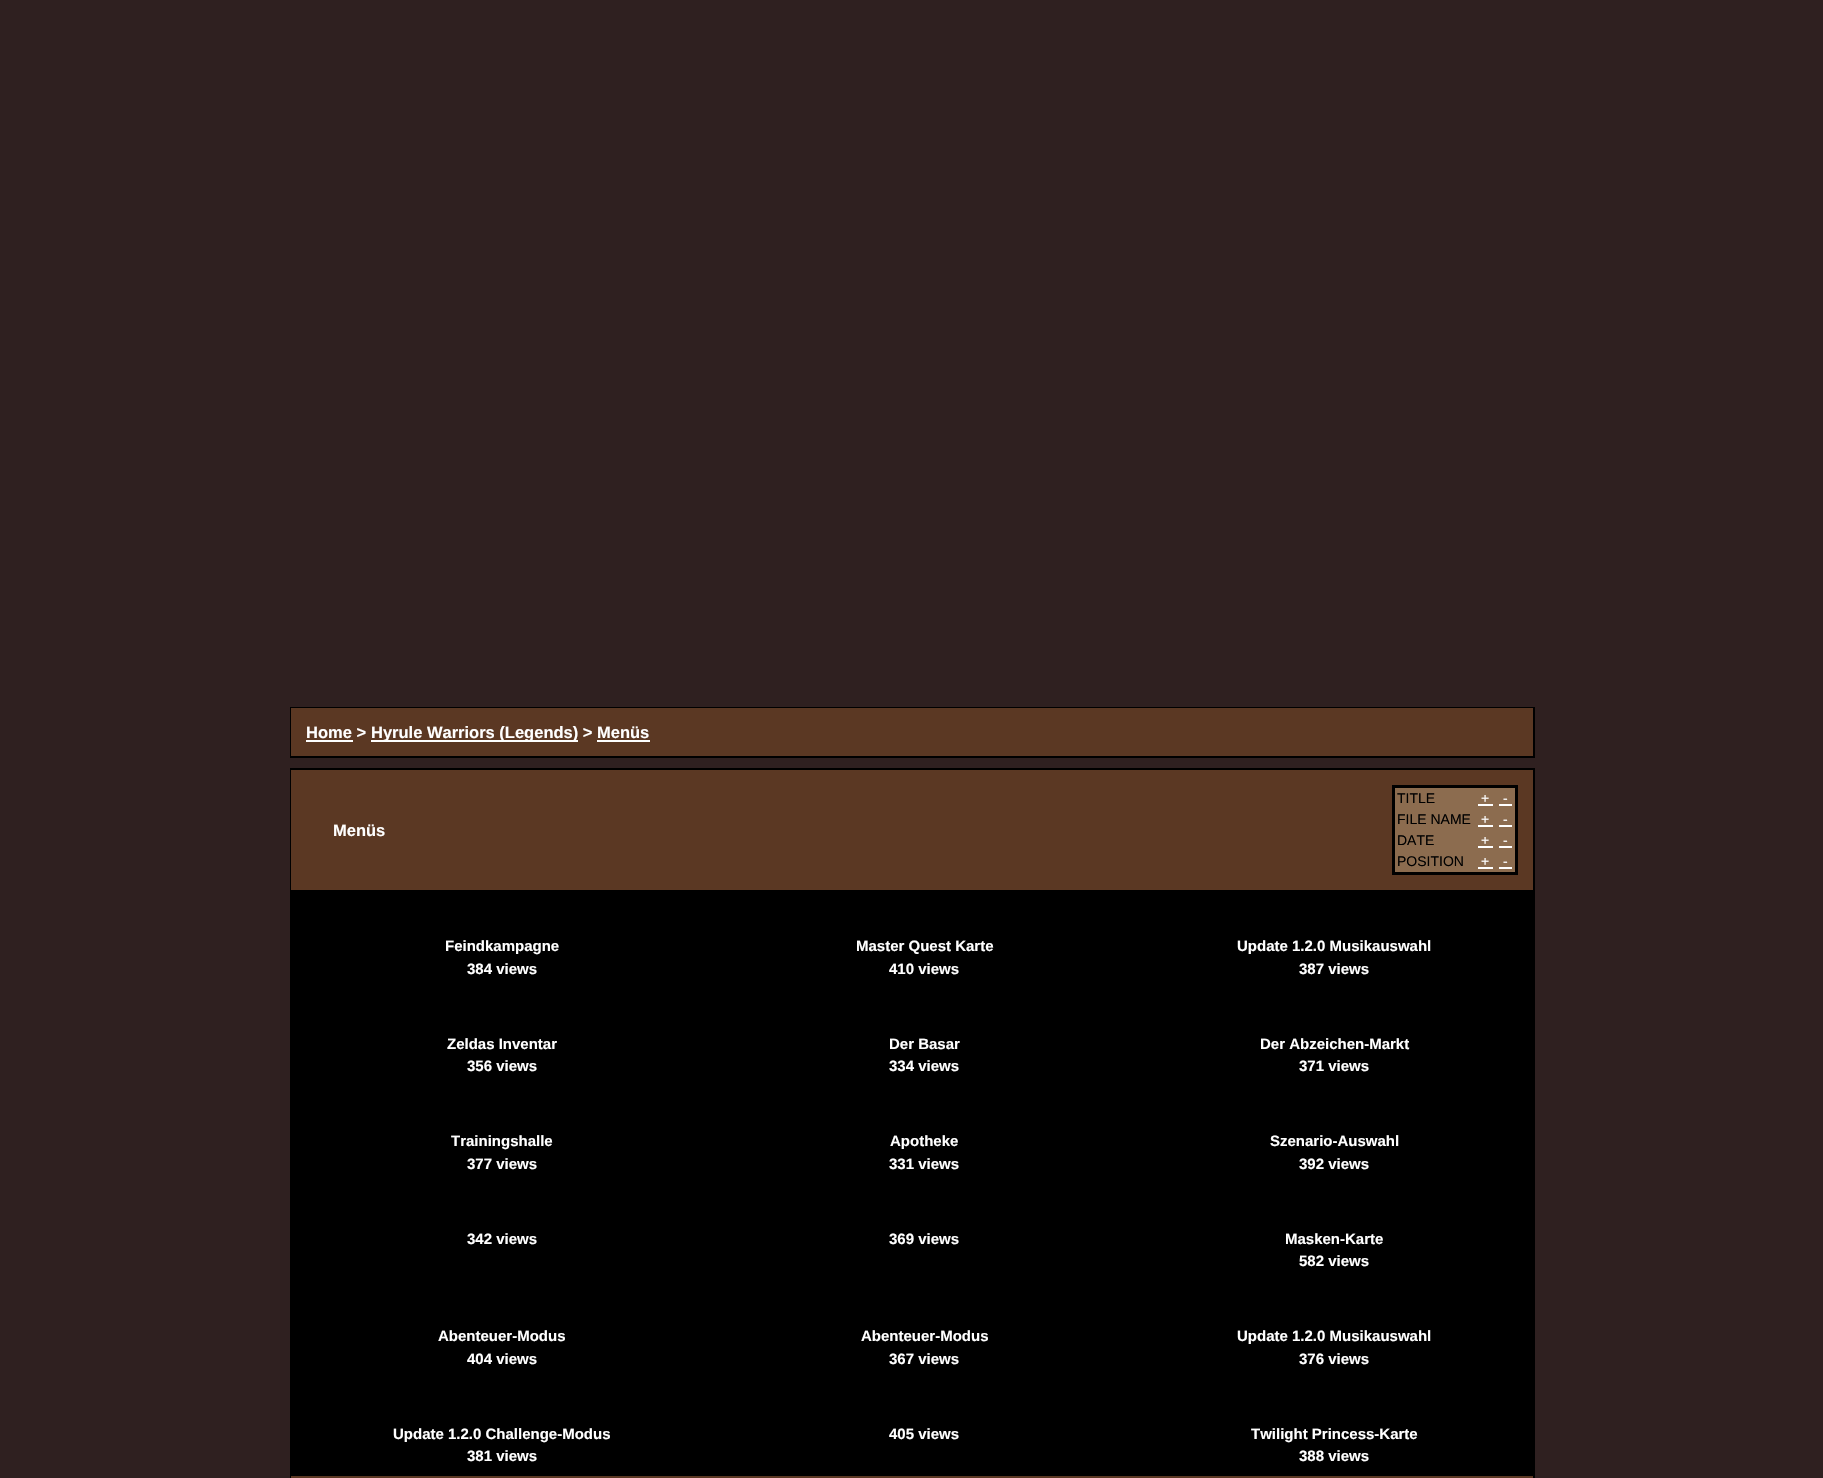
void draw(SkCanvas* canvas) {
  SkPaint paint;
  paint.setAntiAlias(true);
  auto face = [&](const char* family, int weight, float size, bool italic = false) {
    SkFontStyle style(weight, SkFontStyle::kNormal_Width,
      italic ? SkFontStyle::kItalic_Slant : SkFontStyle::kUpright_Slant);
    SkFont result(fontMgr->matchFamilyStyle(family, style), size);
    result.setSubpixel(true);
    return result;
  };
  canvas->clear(0xff2f2020);
  {
    const struct { float x, y, w, h; SkColor color; } items[] = {
      {290, 707, 1245, 51, 0xff000000},
      {291, 708, 1242, 48, 0xff5b3823},
      {306, 740, 47, 2, 0xffffffff},
      {371, 740, 207, 2, 0xffffffff},
      {597, 740, 53, 2, 0xffffffff},
      {290, 768, 1245, 710, 0xff000000},
      {291, 770, 1242, 120, 0xff5b3823},
      {1392, 785, 126, 90, 0xff000000},
      {1395, 788, 120, 21, 0xff8c6c4f},
      {1478, 804, 15, 2, 0xffffffff},
      {1499, 804, 13, 2, 0xffffffff},
      {1395, 809, 120, 21, 0xff8c6c4f},
      {1478, 825, 15, 2, 0xffffffff},
      {1499, 825, 13, 2, 0xffffffff},
      {1395, 830, 120, 21, 0xff8c6c4f},
      {1478, 846, 15, 2, 0xffffffff},
      {1499, 846, 13, 2, 0xffffffff},
      {1395, 851, 120, 21, 0xff8c6c4f},
      {1478, 867, 15, 2, 0xffffffff},
      {1499, 867, 13, 2, 0xffffffff},
      {291, 1476, 1242, 2, 0xff5b3823},
    };
    for (auto [x, y, w, h, color] : items) {
      paint.setColor(color);
      canvas->drawRect(SkRect::MakeXYWH(x, y, w, h), paint);
    }
  }
  auto f0 = face("Liberation Sans", 700, 16.5f);
  paint.setColor(0xffffffff);
  {
    const struct { const char* s; float x, y; } items[] = {
      {"Home >", 306, 738},
      {"Hyrule Warriors (Legends) > Menüs", 371, 738},
      {"Menüs", 333, 836},
    };
    for (auto [s, x, y] : items) {
      canvas->drawString(s, x, y, f0, paint);
    }
  }
  auto f1 = face("Liberation Sans", 400, 14);
  paint.setColor(0xff000000);
  canvas->drawString("TITLE", 1397, 803, f1, paint);
  paint.setColor(0xffffffff);
  canvas->drawString("+", 1481, 803, f1, paint);
  canvas->drawString("-", 1503, 803, f1, paint);
  paint.setColor(0xff000000);
  canvas->drawString("FILE NAME", 1397, 824, f1, paint);
  paint.setColor(0xffffffff);
  canvas->drawString("+", 1481, 824, f1, paint);
  canvas->drawString("-", 1503, 824, f1, paint);
  paint.setColor(0xff000000);
  canvas->drawString("DATE", 1397, 845, f1, paint);
  paint.setColor(0xffffffff);
  canvas->drawString("+", 1481, 845, f1, paint);
  canvas->drawString("-", 1503, 845, f1, paint);
  paint.setColor(0xff000000);
  canvas->drawString("POSITION", 1397, 866, f1, paint);
  paint.setColor(0xffffffff);
  canvas->drawString("+", 1481, 866, f1, paint);
  canvas->drawString("-", 1503, 866, f1, paint);
  auto f2 = face("Liberation Sans", 700, 15);
  {
    const struct { const char* s; float x, y; } items[] = {
      {"Feindkampagne", 445, 951},
      {"384 views", 467, 974},
      {"Master Quest Karte", 856, 951},
      {"410 views", 889, 974},
      {"Update 1.2.0 Musikauswahl", 1237, 951},
      {"387 views", 1299, 974},
      {"Zeldas Inventar", 447, 1049},
      {"356 views", 467, 1071},
      {"Der Basar", 889, 1049},
      {"334 views", 889, 1071},
      {"Der Abzeichen-Markt", 1260, 1049},
      {"371 views", 1299, 1071},
      {"Trainingshalle", 451, 1146},
      {"377 views", 467, 1169},
      {"Apotheke", 890, 1146},
      {"331 views", 889, 1169},
      {"Szenario-Auswahl", 1270, 1146},
      {"392 views", 1299, 1169},
      {"342 views", 467, 1244},
      {"369 views", 889, 1244},
      {"Masken-Karte", 1285, 1244},
      {"582 views", 1299, 1266},
      {"Abenteuer-Modus", 438, 1341},
      {"404 views", 467, 1364},
      {"Abenteuer-Modus", 861, 1341},
      {"367 views", 889, 1364},
      {"Update 1.2.0 Musikauswahl", 1237, 1341},
      {"376 views", 1299, 1364},
      {"Update 1.2.0 Challenge-Modus", 393, 1439},
      {"381 views", 467, 1461},
      {"405 views", 889, 1439},
      {"Twilight Princess-Karte", 1251, 1439},
      {"388 views", 1299, 1461},
    };
    for (auto [s, x, y] : items) {
      canvas->drawString(s, x, y, f2, paint);
    }
  }
}
